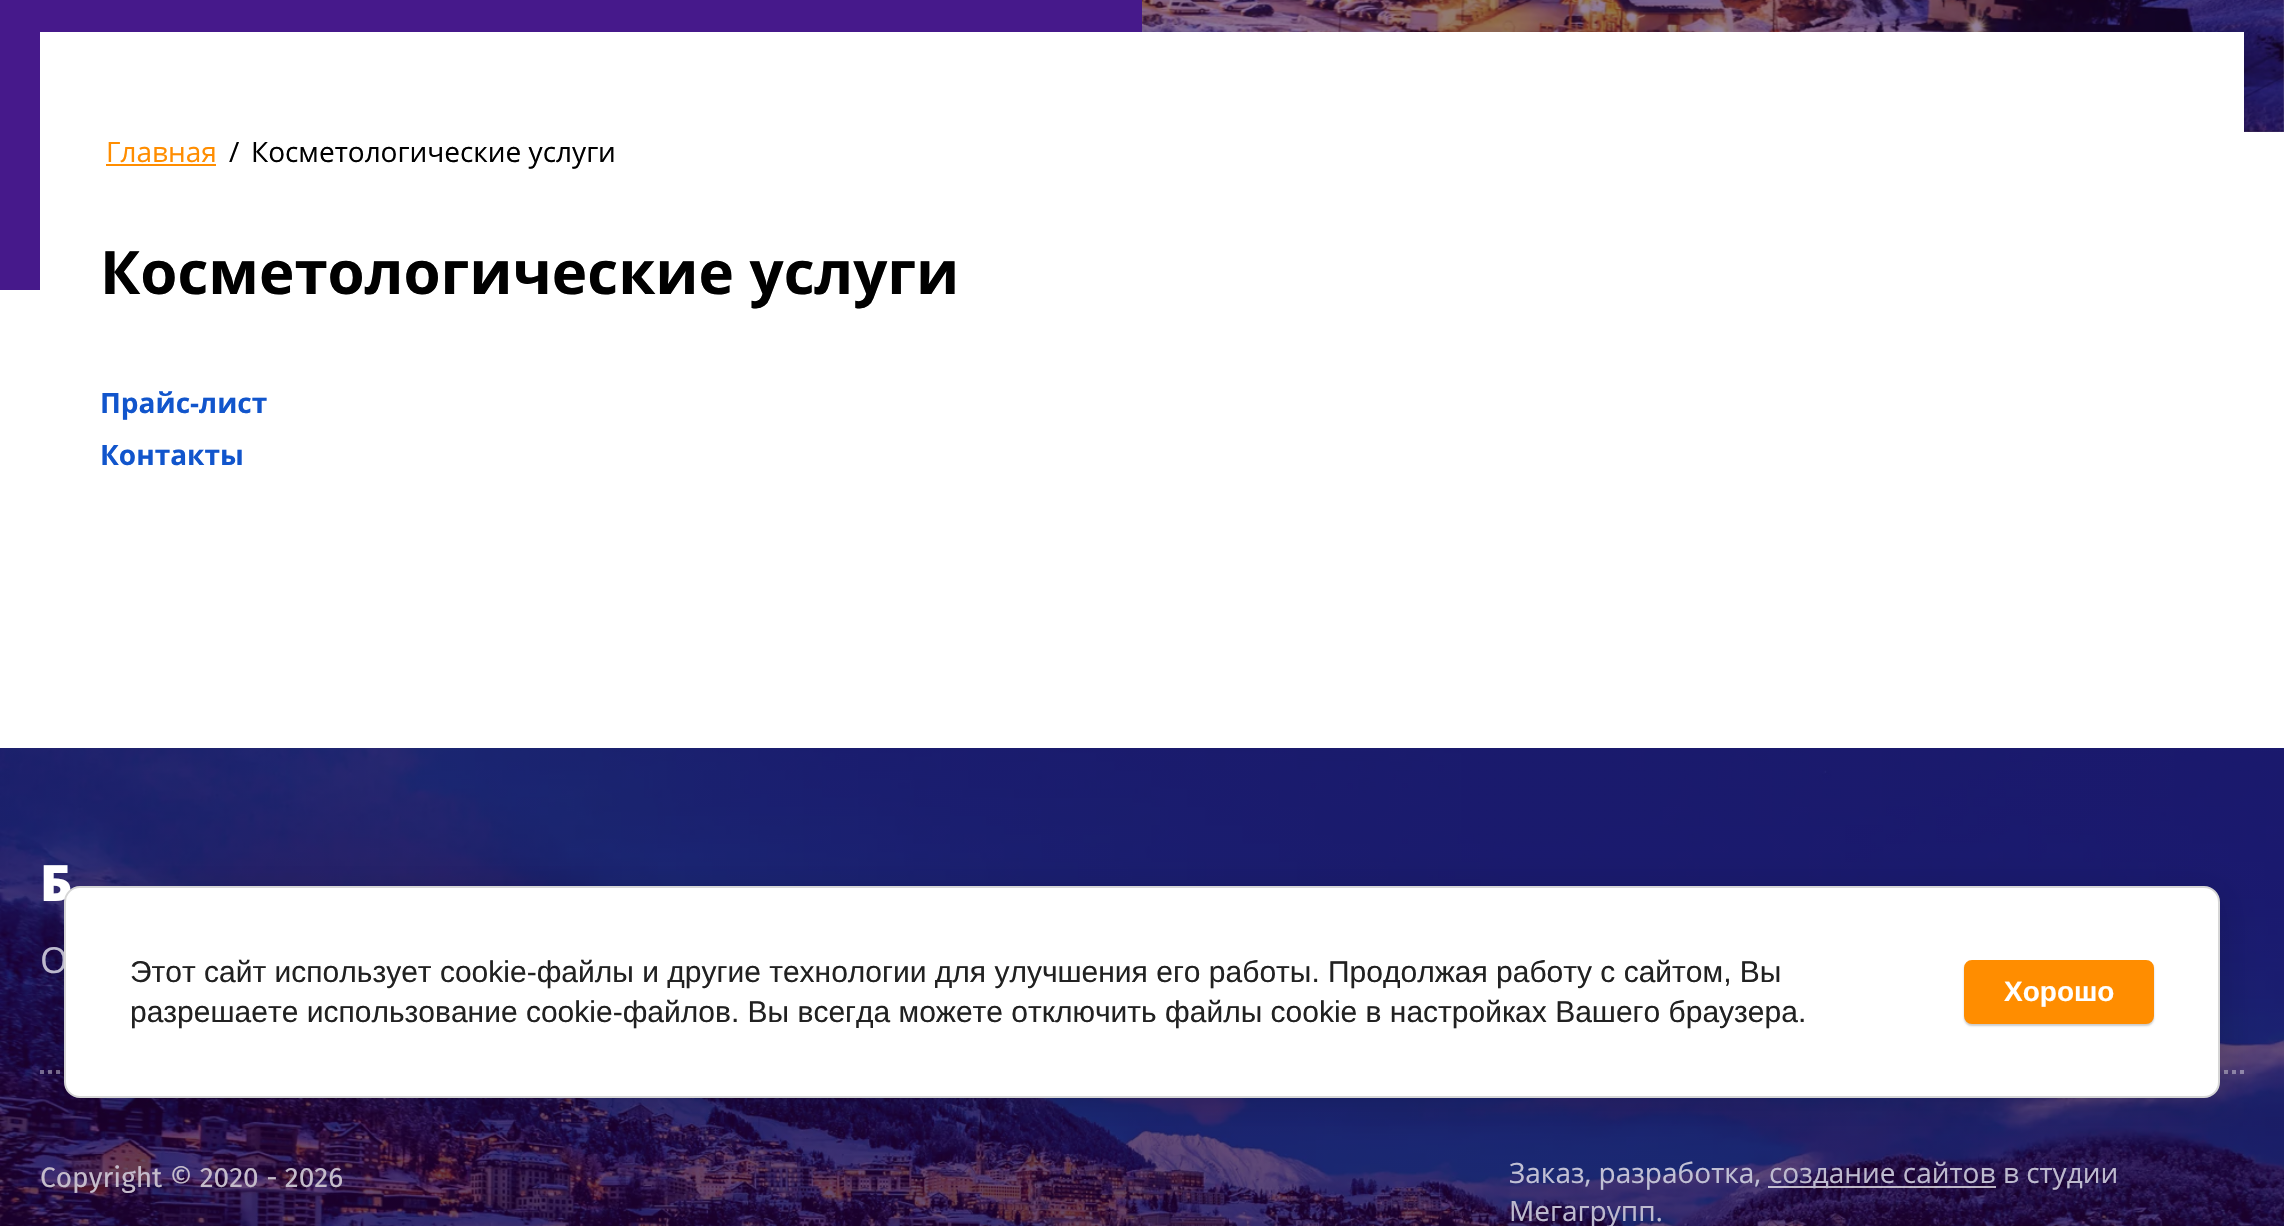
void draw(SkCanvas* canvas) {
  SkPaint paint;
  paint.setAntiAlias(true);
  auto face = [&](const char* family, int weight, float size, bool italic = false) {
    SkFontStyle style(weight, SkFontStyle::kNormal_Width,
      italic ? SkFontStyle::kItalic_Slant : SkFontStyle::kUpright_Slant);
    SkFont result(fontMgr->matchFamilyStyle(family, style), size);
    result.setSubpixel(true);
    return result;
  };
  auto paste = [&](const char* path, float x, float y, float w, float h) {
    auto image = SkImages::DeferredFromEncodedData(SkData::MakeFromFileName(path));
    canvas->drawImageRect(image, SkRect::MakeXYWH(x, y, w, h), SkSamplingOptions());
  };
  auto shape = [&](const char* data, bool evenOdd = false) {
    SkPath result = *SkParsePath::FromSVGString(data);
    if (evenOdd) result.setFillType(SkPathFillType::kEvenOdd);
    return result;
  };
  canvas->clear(0xffffffff);
  paint.setColor(0xff796685);
  canvas->drawRect(SkRect::MakeXYWH(2244, 0, 40, 132), paint);
  paste("img/1.png", 1142, 0, 1142, 132);
  {
    const SkColor colors[] = {0x00ffffff, 0x0046198b, 0xff46198b, 0xff46198b};
    const float stops[] = {0, 0.5f, 0.5f, 1};
    const SkPoint ends[] = {{2284, 290}, {0, 290}};
    paint.setShader(SkGradientShader::MakeLinear(ends, colors, stops, 4, SkTileMode::kClamp));
    paint.setAlpha(255);
  }
  canvas->drawRect(SkRect::MakeXYWH(0, 0, 1142, 290), paint);
  paint.setShader(nullptr);
  paint.setColor(0xffffffff);
  canvas->drawRect(SkRect::MakeXYWH(40, 32, 2204, 258), paint);
  paint.setColor(0xffff8d00);
  canvas->drawRect(SkRect::MakeXYWH(106, 164, 110, 2), paint);
  paste("img/2.png", 0, 748, 2284, 478);
  paint.setStroke(true);
  paint.setStrokeWidth(4);
  paint.setColor(0x66ffffff);
  paint.setPathEffect(SkDashPathEffect::Make({{4, 4}}, 0));
  canvas->drawPath(shape("M40 1072H2244"), paint);
  paint.setPathEffect(nullptr);
  paint.setStroke(false);
  paint.setColor(0xb3ffffff);
  canvas->drawRect(SkRect::MakeXYWH(1768, 1186, 228, 2), paint);
  paint.setColor(0x24000000);
  paint.setMaskFilter(SkMaskFilter::MakeBlur(kNormal_SkBlurStyle, 18));
  canvas->drawRoundRect(SkRect::MakeXYWH(68, 890, 2156, 212), 16, 16, paint);
  paint.setMaskFilter(nullptr);
  auto f0 = face("Open Sans", 400, 28);
  paint.setColor(0xffff8d00);
  canvas->drawString("Главная", 106, 162, f0, paint);
  paint.setColor(0xff000000);
  canvas->drawString("/", 229, 162, f0, paint);
  canvas->drawString("Косметологические услуги", 251, 162, f0, paint);
  auto f1 = face("Open Sans", 700, 60);
  canvas->drawString("Косметологические услуги", 100, 294, f1, paint);
  auto f2 = face("Open Sans", 700, 28);
  paint.setColor(0xff1155cc);
  canvas->drawString("Прайс-лист", 100, 413, f2, paint);
  canvas->drawString("Контакты", 100, 465, f2, paint);
  auto f3 = face("Open Sans", 800, 50);
  paint.setColor(0xffffffff);
  canvas->drawString("Б", 40, 901, f3, paint);
  auto f4 = face("Open Sans", 400, 36);
  paint.setColor(0xffbdbace);
  canvas->drawString("О", 40, 973, f4, paint);
  auto f5 = face("Fira Sans", 400, 28);
  paint.setColor(0xffc5bccb);
  canvas->drawString("Copyright © 2020 - 2026", 40, 1187, f5, paint);
  paint.setColor(0xffc0c0d4);
  canvas->drawString("Заказ, разработка,", 1509, 1183, f0, paint);
  paint.setColor(0xffbdbace);
  {
    const struct { const char* s; float x, y; } items[] = {
      {"создание сайтов", 1769, 1183},
      {"в студии", 2003, 1183},
      {"Мегагрупп.", 1509, 1221},
    };
    for (auto [s, x, y] : items) {
      canvas->drawString(s, x, y, f0, paint);
    }
  }
  paint.setColor(0xffffffff);
  canvas->drawRoundRect(SkRect::MakeXYWH(65, 887, 2154, 210), 15, 15, paint);
  paint.setStroke(true);
  paint.setStrokeWidth(2);
  paint.setColor(0xffd6d6d6);
  canvas->drawRoundRect(SkRect::MakeXYWH(65, 887, 2154, 210), 15, 15, paint);
  auto f6 = face("Liberation Sans", 400, 30);
  paint.setStroke(false);
  paint.setColor(0xff212121);
  canvas->drawString("Этот сайт использует cookie-файлы и другие технологии для улучшения его работы. Продолжая работу с сайтом, Вы", 130, 982, f6, paint);
  canvas->drawString("разрешаете использование cookie-файлов. Вы всегда можете отключить файлы cookie в настройках Вашего браузера.", 130, 1022, f6, paint);
  paint.setColor(0x33000000);
  paint.setMaskFilter(SkMaskFilter::MakeBlur(kNormal_SkBlurStyle, 1));
  canvas->drawRoundRect(SkRect::MakeXYWH(1964, 962, 190, 64), 8, 8, paint);
  paint.setMaskFilter(nullptr);
  paint.setColor(0xffff8d00);
  canvas->drawRoundRect(SkRect::MakeXYWH(1965, 961, 188, 62), 7, 7, paint);
  paint.setStroke(true);
  canvas->drawRoundRect(SkRect::MakeXYWH(1965, 961, 188, 62), 7, 7, paint);
  auto f7 = face("Liberation Sans", 700, 28);
  paint.setStroke(false);
  paint.setColor(0xffffffff);
  canvas->drawString("Хорошо", 2004, 1001, f7, paint);
}
